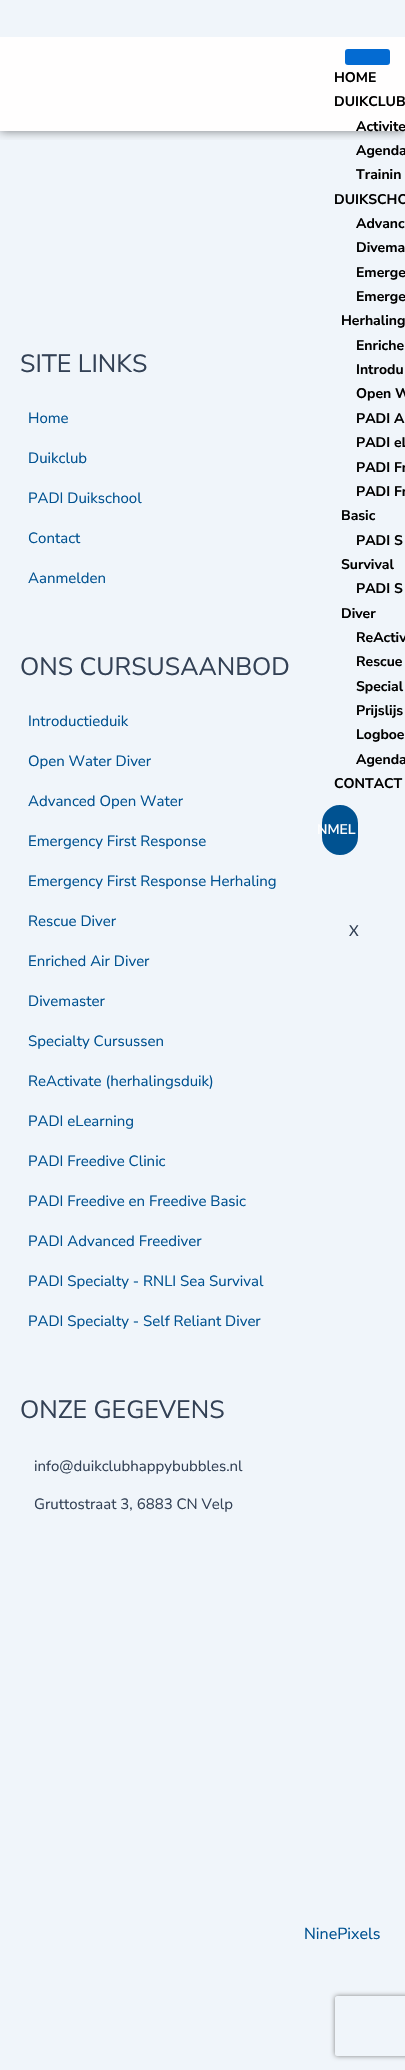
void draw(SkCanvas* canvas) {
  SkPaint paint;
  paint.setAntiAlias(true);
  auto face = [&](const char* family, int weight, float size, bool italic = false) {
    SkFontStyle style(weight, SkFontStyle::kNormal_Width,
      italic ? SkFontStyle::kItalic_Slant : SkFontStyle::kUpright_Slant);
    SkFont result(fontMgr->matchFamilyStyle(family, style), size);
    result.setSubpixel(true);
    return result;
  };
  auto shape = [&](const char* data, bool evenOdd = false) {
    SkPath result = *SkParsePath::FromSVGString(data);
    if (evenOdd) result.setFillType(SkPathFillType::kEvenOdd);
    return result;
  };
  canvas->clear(0xfff0f5fa);
  canvas->save();
  canvas->clipRect(SkRect::MakeXYWH(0, 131, 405, 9));
  paint.setColor(0x80000000);
  paint.setMaskFilter(SkMaskFilter::MakeBlur(kNormal_SkBlurStyle, 5));
  canvas->drawRect(SkRect::MakeXYWH(0, 0, 405, 131), paint);
  paint.setMaskFilter(nullptr);
  canvas->restore();
  paint.setColor(0xfffffefe);
  canvas->drawRect(SkRect::MakeXYWH(0, 37, 405, 94), paint);
  paint.setColor(0xff046bd2);
  canvas->drawRoundRect(SkRect::MakeXYWH(345, 49, 45, 16), 3, 3, paint);
  paint.setColor(0xff005291);
  canvas->drawRoundRect(SkRect::MakeXYWH(323.5f, 806.5f, 33, 47), 16.5f, 16.5f, paint);
  paint.setStroke(true);
  paint.setStrokeWidth(3);
  canvas->drawRoundRect(SkRect::MakeXYWH(323.5f, 806.5f, 33, 47), 16.5f, 16.5f, paint);
  canvas->save();
  canvas->clipPath(shape("M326 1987H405V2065H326ZM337 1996H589C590 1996 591 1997 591 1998V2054C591 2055 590 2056 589 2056H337C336 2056 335 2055 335 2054V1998C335 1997 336 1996 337 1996Z", true), true);
  paint.setStroke(false);
  paint.setColor(0xff808080);
  paint.setMaskFilter(SkMaskFilter::MakeBlur(kNormal_SkBlurStyle, 2.5f));
  canvas->drawRoundRect(SkRect::MakeXYWH(335, 1996, 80, 60), 2, 2, paint);
  paint.setMaskFilter(nullptr);
  canvas->restore();
  auto f0 = face("Nunito Sans", 700, 14);
  paint.setColor(0xff000000);
  {
    const struct { const char* s; float x, y; } items[] = {
      {"HOME", 334, 82},
      {"DUIKCLUB", 334, 106},
      {"Activite", 356, 131},
      {"Agenda", 356, 155},
      {"Trainin", 356, 179},
      {"DUIKSCHO", 334, 204},
      {"Advanc", 356, 228},
      {"Divema", 356, 252},
      {"Emerge", 356, 277},
      {"Emerge", 356, 301},
      {"Herhaling", 341, 325},
      {"Enriche", 356, 350},
      {"Introdu", 356, 374},
      {"Open W", 356, 398},
      {"PADI A", 356, 423},
      {"PADI eL", 356, 447},
      {"PADI Fr", 356, 472},
      {"PADI Fr", 356, 496},
      {"Basic", 341, 520},
      {"PADI S", 356, 545},
      {"Survival", 341, 569},
      {"PADI S", 356, 593},
      {"Diver", 341, 618},
      {"ReActiv", 356, 642},
      {"Rescue", 356, 666},
      {"Special", 356, 691},
      {"Prijslijs", 356, 715},
      {"Logboe", 356, 739},
      {"Agenda", 356, 764},
      {"CONTACT", 334, 788},
    };
    for (auto [s, x, y] : items) {
      canvas->drawString(s, x, y, f0, paint);
    }
  }
  auto f1 = face("Nunito Sans", 600, 14);
  paint.setColor(0xfffffefe);
  canvas->drawString("NMEL", 317, 834, f1, paint);
  auto f2 = face("Lato", 400, 15);
  paint.setColor(0xff334155);
  canvas->drawString("X", 349, 936, f2, paint);
  auto f3 = face("Nunito Sans", 400, 25);
  canvas->drawString("SITE LINKS", 20, 372, f3, paint);
  auto f4 = face("Nunito Sans", 400, 15);
  paint.setColor(0xff005291);
  {
    const struct { const char* s; float x, y; } items[] = {
      {"Home", 28, 423},
      {"Duikclub", 28, 463},
      {"PADI Duikschool", 28, 503},
      {"Contact", 28, 543},
      {"Aanmelden", 28, 583},
    };
    for (auto [s, x, y] : items) {
      canvas->drawString(s, x, y, f4, paint);
    }
  }
  paint.setColor(0xff334155);
  canvas->drawString("ONS CURSUSAANBOD", 20, 675, f3, paint);
  paint.setColor(0xff005291);
  {
    const struct { const char* s; float x, y; } items[] = {
      {"Introductieduik", 28, 726},
      {"Open Water Diver", 28, 766},
      {"Advanced Open Water", 28, 806},
      {"Emergency First Response", 28, 846},
      {"Emergency First Response Herhaling", 28, 886},
      {"Rescue Diver", 28, 926},
      {"Enriched Air Diver", 28, 966},
      {"Divemaster", 28, 1006},
      {"Specialty Cursussen", 28, 1046},
      {"ReActivate (herhalingsduik)", 28, 1086},
      {"PADI eLearning", 28, 1126},
      {"PADI Freedive Clinic", 28, 1166},
      {"PADI Freedive en Freedive Basic", 28, 1206},
      {"PADI Advanced Freediver", 28, 1246},
      {"PADI Specialty - RNLI Sea Survival", 28, 1286},
      {"PADI Specialty - Self Reliant Diver", 28, 1326},
    };
    for (auto [s, x, y] : items) {
      canvas->drawString(s, x, y, f4, paint);
    }
  }
  paint.setColor(0xff334155);
  canvas->drawString("ONZE GEGEVENS", 20, 1418, f3, paint);
  canvas->drawString("info@duikclubhappybubbles.nl", 34, 1471, f4, paint);
  canvas->drawString("Gruttostraat 3, 6883 CN Velp", 34, 1509, f4, paint);
  auto f5 = face("Nunito Sans", 400, 16);
  paint.setColor(0xff005291);
  canvas->drawString("NinePixels", 304, 1939, f5, paint);
}
